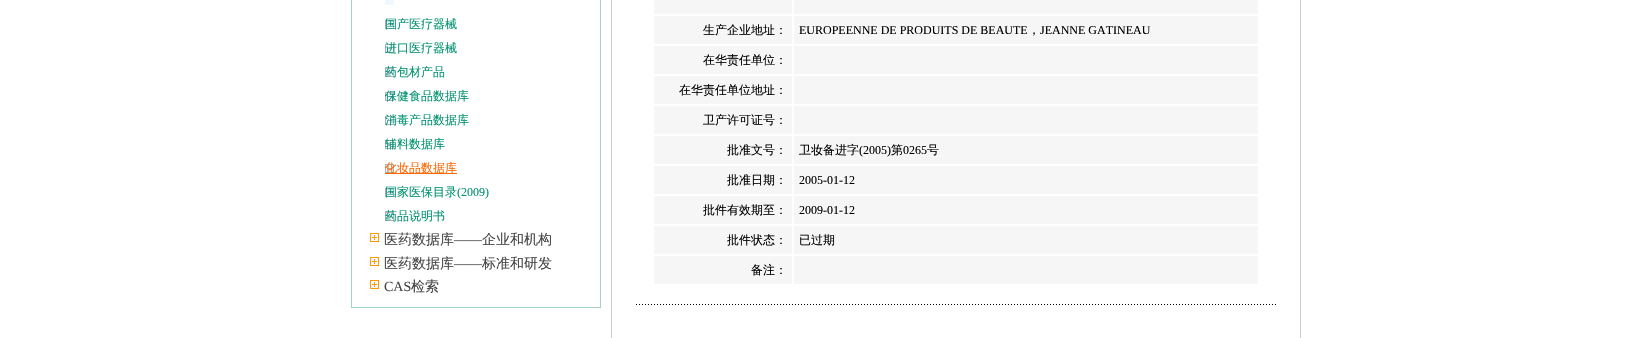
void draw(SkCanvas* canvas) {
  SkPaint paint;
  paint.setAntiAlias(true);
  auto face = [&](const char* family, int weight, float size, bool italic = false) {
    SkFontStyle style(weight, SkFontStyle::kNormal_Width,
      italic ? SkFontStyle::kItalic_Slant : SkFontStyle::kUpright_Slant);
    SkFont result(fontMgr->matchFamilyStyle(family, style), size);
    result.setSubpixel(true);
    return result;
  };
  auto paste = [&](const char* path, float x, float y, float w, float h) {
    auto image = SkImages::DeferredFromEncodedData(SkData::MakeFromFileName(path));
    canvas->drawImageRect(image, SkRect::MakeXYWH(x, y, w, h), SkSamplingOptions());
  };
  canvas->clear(0xffffffff);
  paint.setStroke(true);
  paint.setStrokeWidth(1);
  paint.setColor(0xffa4d4be);
  canvas->drawRect(SkRect::MakeXYWH(351.5f, -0.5f, 249, 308), paint);
  paint.setStroke(false);
  paint.setColor(0xfff0f9ff);
  canvas->drawRect(SkRect::MakeXYWH(385, 0, 9, 5), paint);
  paste("img/1.png", 385, 20, 9, 9);
  paste("img/1.png", 385, 44, 9, 9);
  paste("img/1.png", 385, 68, 9, 9);
  paste("img/1.png", 385, 92, 9, 9);
  paste("img/1.png", 385, 116, 9, 9);
  paste("img/1.png", 385, 140, 9, 9);
  paste("img/1.png", 385, 164, 9, 9);
  paint.setColor(0xffff6600);
  canvas->drawRect(SkRect::MakeXYWH(385, 173, 72, 1), paint);
  paste("img/1.png", 385, 188, 9, 9);
  paste("img/1.png", 385, 212, 9, 9);
  paste("img/2.png", 370, 233, 9, 9);
  paste("img/2.png", 370, 257, 9, 9);
  paste("img/2.png", 370, 280, 9, 9);
  paint.setStroke(true);
  paint.setColor(0xffcccccc);
  canvas->drawRect(SkRect::MakeXYWH(611.5f, -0.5f, 689, 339), paint);
  paint.setStroke(false);
  {
    const struct { float x, y, w, h; SkColor color; } items[] = {
      {654, 0, 138, 14, 0xfff6f6f6},
      {794, 0, 464, 14, 0xfff6f6f6},
      {654, 16, 138, 28, 0xfff6f6f6},
      {794, 16, 464, 28, 0xfff6f6f6},
      {654, 46, 138, 28, 0xfff6f6f6},
      {794, 46, 464, 28, 0xfff6f6f6},
      {654, 76, 138, 28, 0xfff6f6f6},
      {794, 76, 464, 28, 0xfff6f6f6},
      {654, 106, 138, 28, 0xfff6f6f6},
      {794, 106, 464, 28, 0xfff6f6f6},
      {654, 136, 138, 28, 0xfff6f6f6},
      {794, 136, 464, 28, 0xfff6f6f6},
      {654, 166, 138, 28, 0xfff6f6f6},
      {794, 166, 464, 28, 0xfff6f6f6},
      {654, 196, 138, 28, 0xfff6f6f6},
      {794, 196, 464, 28, 0xfff6f6f6},
      {654, 226, 138, 28, 0xfff6f6f6},
      {794, 226, 464, 28, 0xfff6f6f6},
      {654, 256, 138, 28, 0xfff6f6f6},
      {794, 256, 464, 28, 0xfff6f6f6},
    };
    for (auto [x, y, w, h, color] : items) {
      paint.setColor(color);
      canvas->drawRect(SkRect::MakeXYWH(x, y, w, h), paint);
    }
  }
  paste("img/3.png", 636, 304, 640, 1);
  auto f0 = face("WenQuanYi Zen Hei", 500, 12);
  paint.setColor(0xff009271);
  {
    const struct { const char* s; float x, y; } items[] = {
      {"国产医疗器械", 385, 28},
      {"进口医疗器械", 385, 52},
      {"药包材产品", 385, 76},
      {"保健食品数据库", 385, 100},
      {"消毒产品数据库", 385, 124},
      {"辅料数据库", 385, 148},
    };
    for (auto [s, x, y] : items) {
      canvas->drawString(s, x, y, f0, paint);
    }
  }
  paint.setColor(0xffff6600);
  canvas->drawString("化妆品数据库", 385, 172, f0, paint);
  paint.setColor(0xff009271);
  canvas->drawString("国家医保目录", 385, 196, f0, paint);
  auto f1 = face("Liberation Serif", 400, 12);
  canvas->drawString("(2009)", 457, 196, f1, paint);
  canvas->drawString("药品说明书", 385, 220, f0, paint);
  auto f2 = face("WenQuanYi Zen Hei", 500, 14);
  paint.setColor(0xff444444);
  canvas->drawString("医药数据库", 384, 244, f2, paint);
  auto f3 = face("Liberation Serif", 400, 14);
  canvas->drawString("——", 454, 244, f3, paint);
  canvas->drawString("企业和机构", 482, 244, f2, paint);
  canvas->drawString("医药数据库", 384, 268, f2, paint);
  canvas->drawString("——", 454, 268, f3, paint);
  canvas->drawString("标准和研发", 482, 268, f2, paint);
  canvas->drawString("CAS", 384, 291, f3, paint);
  canvas->drawString("检索", 411, 291, f2, paint);
  paint.setColor(0xff000000);
  canvas->drawString("生产企业地址：", 703, 34, f0, paint);
  canvas->drawString("EUROPEENNE DE PRODUITS DE BEAUTE", 799, 34, f1, paint);
  canvas->drawString("，", 1028, 34, f0, paint);
  canvas->drawString("JEANNE GATINEAU", 1040, 34, f1, paint);
  {
    const struct { const char* s; float x, y; } items[] = {
      {"在华责任单位：", 703, 64},
      {"在华责任单位地址：", 679, 94},
      {"卫产许可证号：", 703, 124},
      {"批准文号：", 727, 154},
      {"卫妆备进字", 799, 154},
    };
    for (auto [s, x, y] : items) {
      canvas->drawString(s, x, y, f0, paint);
    }
  }
  canvas->drawString("(2005)", 859, 154, f1, paint);
  canvas->drawString("第", 891, 154, f0, paint);
  canvas->drawString("0265", 903, 154, f1, paint);
  canvas->drawString("号", 927, 154, f0, paint);
  canvas->drawString("批准日期：", 727, 184, f0, paint);
  canvas->drawString("2005-01-12", 799, 184, f1, paint);
  canvas->drawString("批件有效期至：", 703, 214, f0, paint);
  canvas->drawString("2009-01-12", 799, 214, f1, paint);
  {
    const struct { const char* s; float x, y; } items[] = {
      {"批件状态：", 727, 244},
      {"已过期", 799, 244},
      {"备注：", 751, 274},
    };
    for (auto [s, x, y] : items) {
      canvas->drawString(s, x, y, f0, paint);
    }
  }
}
